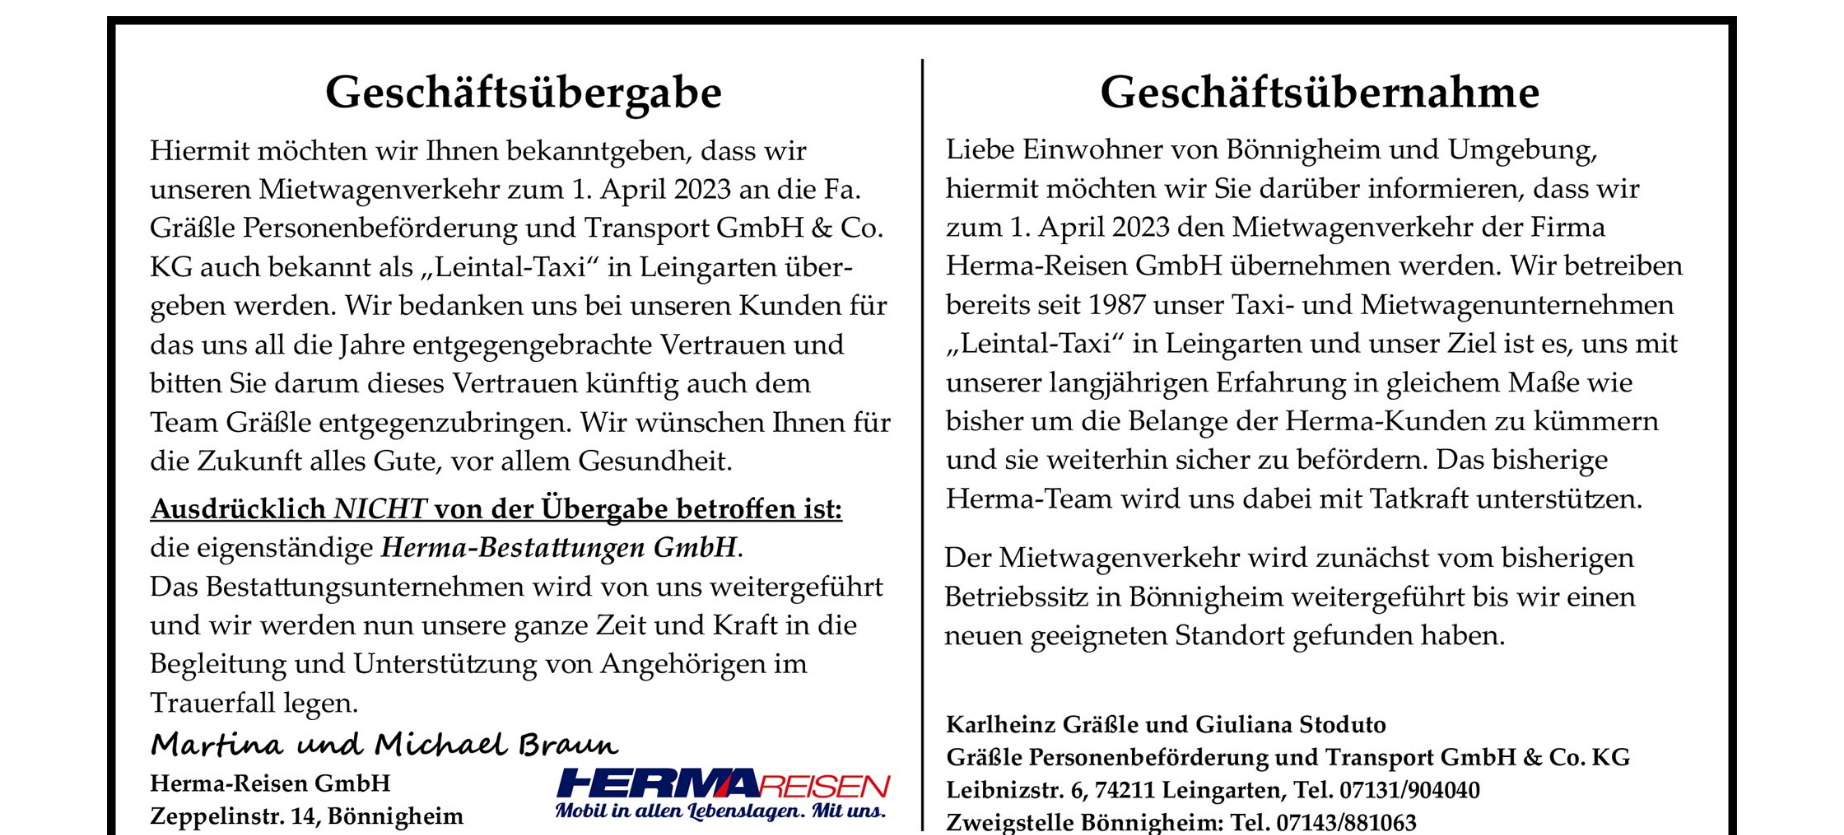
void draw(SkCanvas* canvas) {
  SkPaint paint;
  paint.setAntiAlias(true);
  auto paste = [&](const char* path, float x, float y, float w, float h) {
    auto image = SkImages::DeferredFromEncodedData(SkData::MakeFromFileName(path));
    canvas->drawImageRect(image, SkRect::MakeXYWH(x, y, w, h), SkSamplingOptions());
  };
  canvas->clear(0xffffffff);
  paste("img/1.png", 107, 16, 1630, 819);
}
